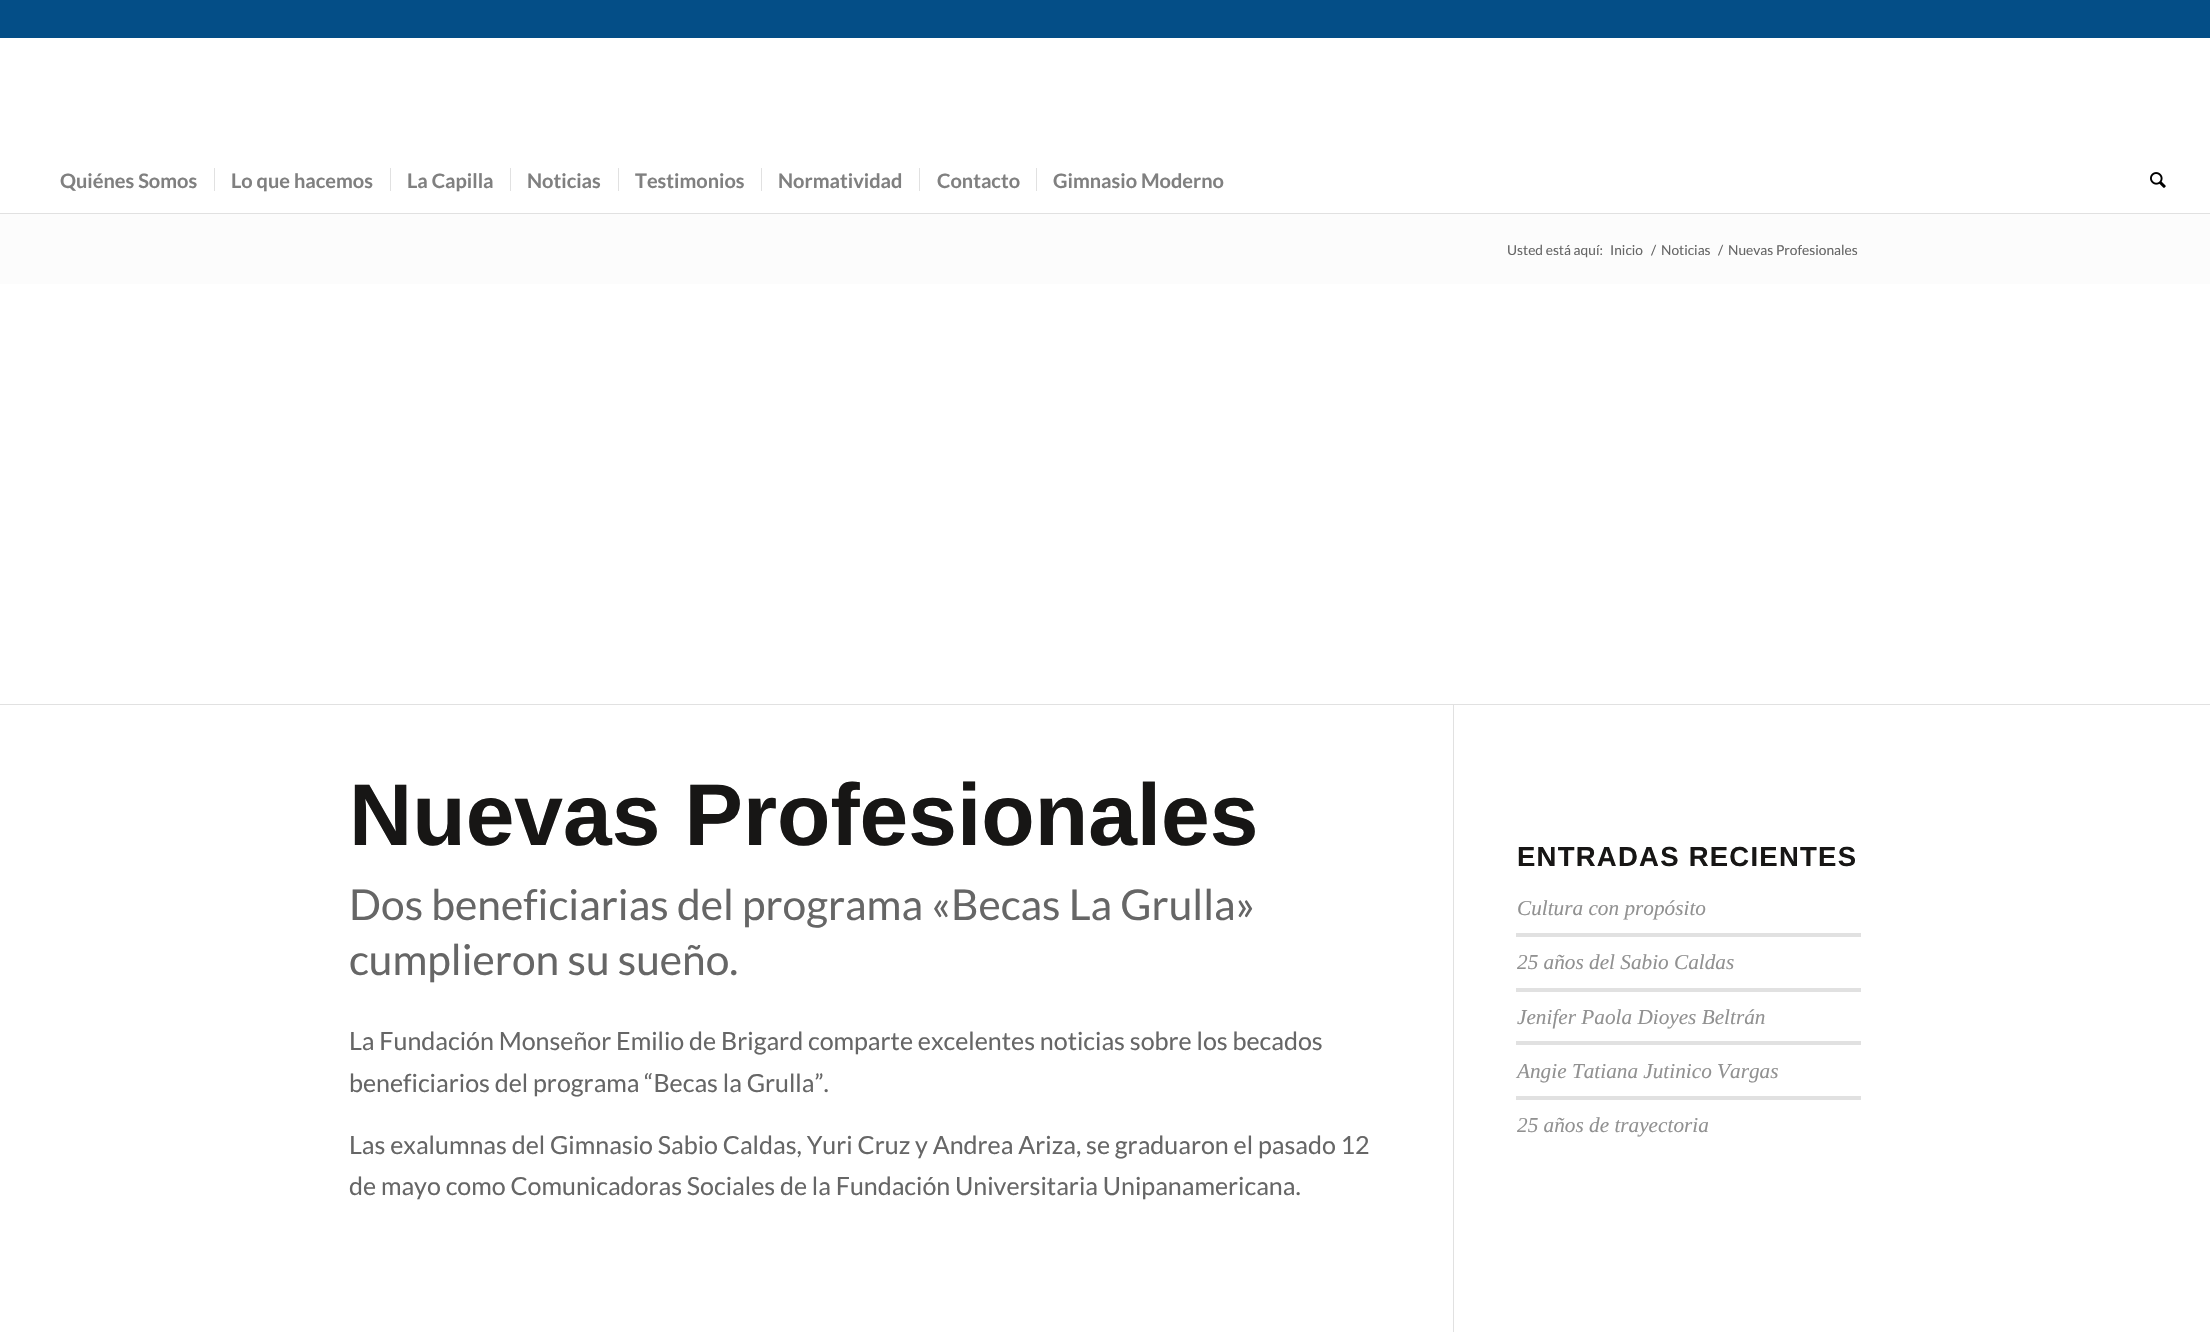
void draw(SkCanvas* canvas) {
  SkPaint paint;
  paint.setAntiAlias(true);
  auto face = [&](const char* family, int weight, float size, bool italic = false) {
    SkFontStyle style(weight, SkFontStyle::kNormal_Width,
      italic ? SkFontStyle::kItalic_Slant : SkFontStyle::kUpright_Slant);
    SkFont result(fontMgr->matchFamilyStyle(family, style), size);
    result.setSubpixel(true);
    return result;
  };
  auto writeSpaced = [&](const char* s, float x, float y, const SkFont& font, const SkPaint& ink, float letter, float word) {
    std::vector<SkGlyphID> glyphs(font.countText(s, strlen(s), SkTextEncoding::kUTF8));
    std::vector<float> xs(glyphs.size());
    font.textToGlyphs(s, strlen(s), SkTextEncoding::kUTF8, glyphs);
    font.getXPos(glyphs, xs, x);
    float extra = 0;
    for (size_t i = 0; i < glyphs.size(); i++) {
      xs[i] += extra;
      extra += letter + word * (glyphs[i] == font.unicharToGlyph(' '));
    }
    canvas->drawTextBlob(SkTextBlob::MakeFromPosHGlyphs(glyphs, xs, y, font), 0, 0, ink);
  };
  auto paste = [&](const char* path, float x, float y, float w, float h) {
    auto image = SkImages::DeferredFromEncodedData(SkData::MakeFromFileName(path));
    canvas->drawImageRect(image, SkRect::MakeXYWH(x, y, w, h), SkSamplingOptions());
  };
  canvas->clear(0xffffffff);
  {
    const struct { float x, y, w, h; SkColor color; } items[] = {
      {0, 0, 2210, 38, 0xff044e87},
      {214, 168, 1, 23, 0xffe1e1e1},
      {390, 168, 1, 23, 0xffe1e1e1},
      {510, 168, 1, 23, 0xffe1e1e1},
      {618, 168, 1, 23, 0xffe1e1e1},
      {761, 168, 1, 23, 0xffe1e1e1},
      {919, 168, 1, 23, 0xffe1e1e1},
      {1036, 168, 1, 23, 0xffe1e1e1},
    };
    for (auto [x, y, w, h, color] : items) {
      paint.setColor(color);
      canvas->drawRect(SkRect::MakeXYWH(x, y, w, h), paint);
    }
  }
  paste("img/1.png", 2150, 172, 16, 16);
  {
    const struct { float x, y, w, h; SkColor color; } items[] = {
      {0, 214, 2210, 70, 0xfffcfcfc},
      {0, 213, 2210, 1, 0xffe1e1e1},
      {0, 704, 2210, 1, 0xffe1e1e1},
      {1453, 705, 1, 627, 0xffe1e1e1},
      {1516, 933, 345, 4, 0xffe1e1e1},
      {1516, 988, 345, 4, 0xffe1e1e1},
      {1516, 1041, 345, 4, 0xffe1e1e1},
      {1516, 1096, 345, 4, 0xffe1e1e1},
    };
    for (auto [x, y, w, h, color] : items) {
      paint.setColor(color);
      canvas->drawRect(SkRect::MakeXYWH(x, y, w, h), paint);
    }
  }
  auto f0 = face("Lato", 700, 20);
  paint.setColor(0xff808080);
  {
    const struct { const char* s; float x, y; } items[] = {
      {"Quiénes Somos", 60, 188},
      {"Lo que hacemos", 231, 188},
      {"La Capilla", 407, 188},
      {"Noticias", 527, 188},
      {"Testimonios", 635, 188},
      {"Normatividad", 778, 188},
      {"Contacto", 937, 188},
      {"Gimnasio Moderno", 1053, 188},
    };
    for (auto [s, x, y] : items) {
      canvas->drawString(s, x, y, f0, paint);
    }
  }
  auto f1 = face("Lato", 400, 13.75f);
  paint.setColor(0xff666666);
  {
    const struct { const char* s; float x, y; } items[] = {
      {"Usted está aquí:", 1507, 255},
      {"Inicio", 1610, 255},
      {"/", 1651, 255},
      {"Noticias", 1661, 255},
      {"/", 1718, 255},
      {"Nuevas Profesionales", 1728, 255},
    };
    for (auto [s, x, y] : items) {
      canvas->drawString(s, x, y, f1, paint);
    }
  }
  auto f2 = face("Liberation Sans", 700, 87.5f);
  paint.setColor(0xff171615);
  canvas->drawString("Nuevas Profesionales", 349, 845, f2, paint);
  auto f3 = face("Lato", 400, 42.5f);
  paint.setColor(0xff666666);
  canvas->drawString("Dos beneficiarias del programa «Becas La Grulla»", 349, 920, f3, paint);
  canvas->drawString("cumplieron su sueño.", 349, 975, f3, paint);
  auto f4 = face("Lato", 400, 25);
  {
    const struct { const char* s; float x, y; } items[] = {
      {"La Fundación Monseñor Emilio de Brigard comparte excelentes noticias sobre los becados", 349, 1050},
      {"beneficiarios del programa “Becas la Grulla”.", 349, 1092},
      {"Las exalumnas del Gimnasio Sabio Caldas, Yuri Cruz y Andrea Ariza, se graduaron el pasado 12", 349, 1154},
      {"de mayo como Comunicadoras Sociales de la Fundación Universitaria Unipanamericana.", 349, 1195},
    };
    for (auto [s, x, y] : items) {
      canvas->drawString(s, x, y, f4, paint);
    }
  }
  auto f5 = face("Liberation Sans", 700, 27.5f);
  paint.setColor(0xff171615);
  writeSpaced("ENTRADAS RECIENTES", 1517, 866, f5, paint, 1.25f, 0);
  auto f6 = face("Liberation Serif", 400, 21.25f, true);
  paint.setColor(0xff919191);
  {
    const struct { const char* s; float x, y; } items[] = {
      {"Cultura con propósito", 1517, 915},
      {"25 años del Sabio Caldas", 1517, 969},
      {"Jenifer Paola Dioyes Beltrán", 1517, 1024},
      {"Angie Tatiana Jutinico Vargas", 1517, 1078},
      {"25 años de trayectoria", 1517, 1132},
    };
    for (auto [s, x, y] : items) {
      canvas->drawString(s, x, y, f6, paint);
    }
  }
}
